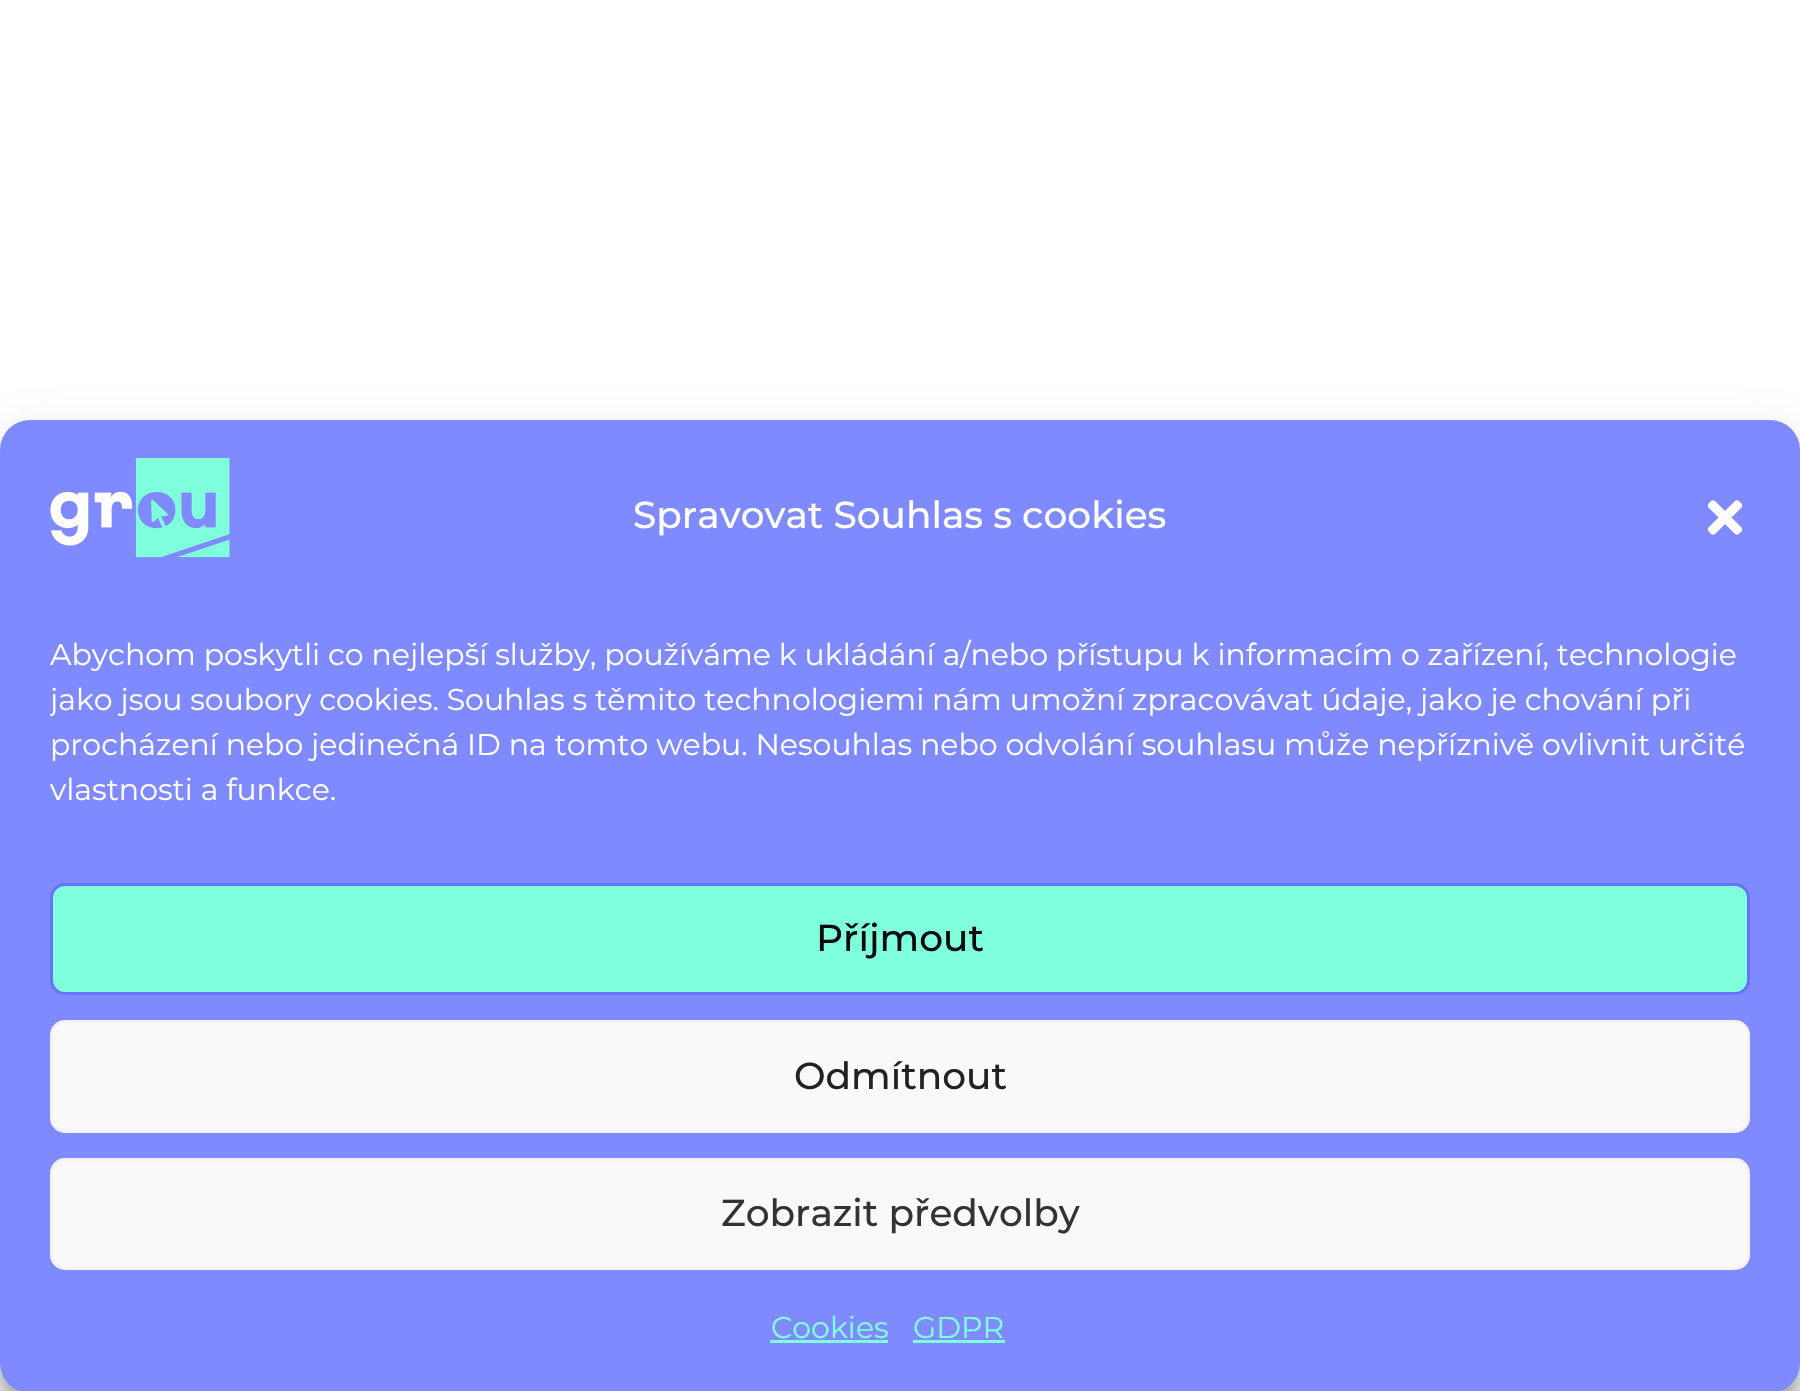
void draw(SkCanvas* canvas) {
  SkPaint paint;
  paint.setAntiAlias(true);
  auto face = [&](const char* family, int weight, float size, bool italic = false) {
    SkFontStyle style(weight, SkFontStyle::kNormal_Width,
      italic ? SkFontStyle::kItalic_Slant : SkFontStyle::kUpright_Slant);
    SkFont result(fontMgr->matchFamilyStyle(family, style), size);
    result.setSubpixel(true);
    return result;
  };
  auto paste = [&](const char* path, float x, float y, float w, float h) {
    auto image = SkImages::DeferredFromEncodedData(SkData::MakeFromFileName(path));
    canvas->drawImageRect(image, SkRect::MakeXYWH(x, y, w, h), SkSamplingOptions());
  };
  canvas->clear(0xffffffff);
  paint.setColor(0x3b000000);
  paint.setMaskFilter(SkMaskFilter::MakeBlur(kNormal_SkBlurStyle, 7.5f));
  canvas->drawRoundRect(SkRect::MakeXYWH(0, 435, 1800, 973), 30, 30, paint);
  paint.setMaskFilter(nullptr);
  paint.setColor(0x30000000);
  paint.setMaskFilter(SkMaskFilter::MakeBlur(kNormal_SkBlurStyle, 25));
  canvas->drawRoundRect(SkRect::MakeXYWH(0, 445, 1800, 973), 30, 30, paint);
  paint.setMaskFilter(nullptr);
  paint.setColor(0xff808aff);
  canvas->drawRoundRect(SkRect::MakeXYWH(0, 420, 1800, 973), 30, 30, paint);
  paste("img/1.png", 50, 458, 180, 100);
  paste("img/2.png", 1707, 500, 36, 35);
  paint.setColor(0xff80ffdc);
  canvas->drawRoundRect(SkRect::MakeXYWH(51.5f, 884.5f, 1697, 109), 13.5f, 13.5f, paint);
  paint.setStroke(true);
  paint.setStrokeWidth(3);
  paint.setColor(0xff6773ff);
  canvas->drawRoundRect(SkRect::MakeXYWH(51.5f, 884.5f, 1697, 109), 13.5f, 13.5f, paint);
  paint.setStroke(false);
  paint.setColor(0xfff9f9f9);
  canvas->drawRoundRect(SkRect::MakeXYWH(51.5f, 1021.5f, 1697, 110), 13.5f, 13.5f, paint);
  paint.setStroke(true);
  paint.setColor(0xfff2f2f2);
  canvas->drawRoundRect(SkRect::MakeXYWH(51.5f, 1021.5f, 1697, 110), 13.5f, 13.5f, paint);
  paint.setStroke(false);
  paint.setColor(0xfff9f9f9);
  canvas->drawRoundRect(SkRect::MakeXYWH(51.5f, 1159.5f, 1697, 109), 13.5f, 13.5f, paint);
  paint.setStroke(true);
  paint.setColor(0xfff2f2f2);
  canvas->drawRoundRect(SkRect::MakeXYWH(51.5f, 1159.5f, 1697, 109), 13.5f, 13.5f, paint);
  paint.setStroke(false);
  paint.setColor(0xff80ffdc);
  canvas->drawRect(SkRect::MakeXYWH(770, 1340, 118, 3), paint);
  canvas->drawRect(SkRect::MakeXYWH(913, 1340, 92, 3), paint);
  auto f0 = face("Montserrat", 500, 37.5f);
  paint.setColor(0xffffffff);
  canvas->drawString("Spravovat Souhlas s cookies", 633, 528, f0, paint);
  auto f1 = face("Montserrat", 400, 30);
  canvas->drawString("Abychom poskytli co nejlepší služby, používáme k ukládání a/nebo přístupu k informacím o zařízení, technologie", 50, 665, f1, paint);
  canvas->save();
  canvas->clipRect(SkRect::MakeXYWH(50, 633, 1700, 192));
  canvas->drawString("jako jsou soubory cookies. Souhlas s těmito technologiemi nám umožní zpracovávat údaje, jako je chování při", 50, 710, f1, paint);
  canvas->restore();
  canvas->drawString("procházení nebo jedinečná ID na tomto webu. Nesouhlas nebo odvolání souhlasu může nepříznivě ovlivnit určité", 50, 755, f1, paint);
  canvas->drawString("vlastnosti a funkce.", 50, 800, f1, paint);
  paint.setColor(0xff0a0a0a);
  canvas->drawString("Příjmout", 816, 951, f0, paint);
  paint.setColor(0xff222222);
  canvas->drawString("Odmítnout", 794, 1089, f0, paint);
  paint.setColor(0xff333333);
  canvas->drawString("Zobrazit předvolby", 721, 1226, f0, paint);
  paint.setColor(0xff80ffdc);
  canvas->drawString("Cookies", 771, 1338, f1, paint);
  canvas->drawString("GDPR", 913, 1338, f1, paint);
}
